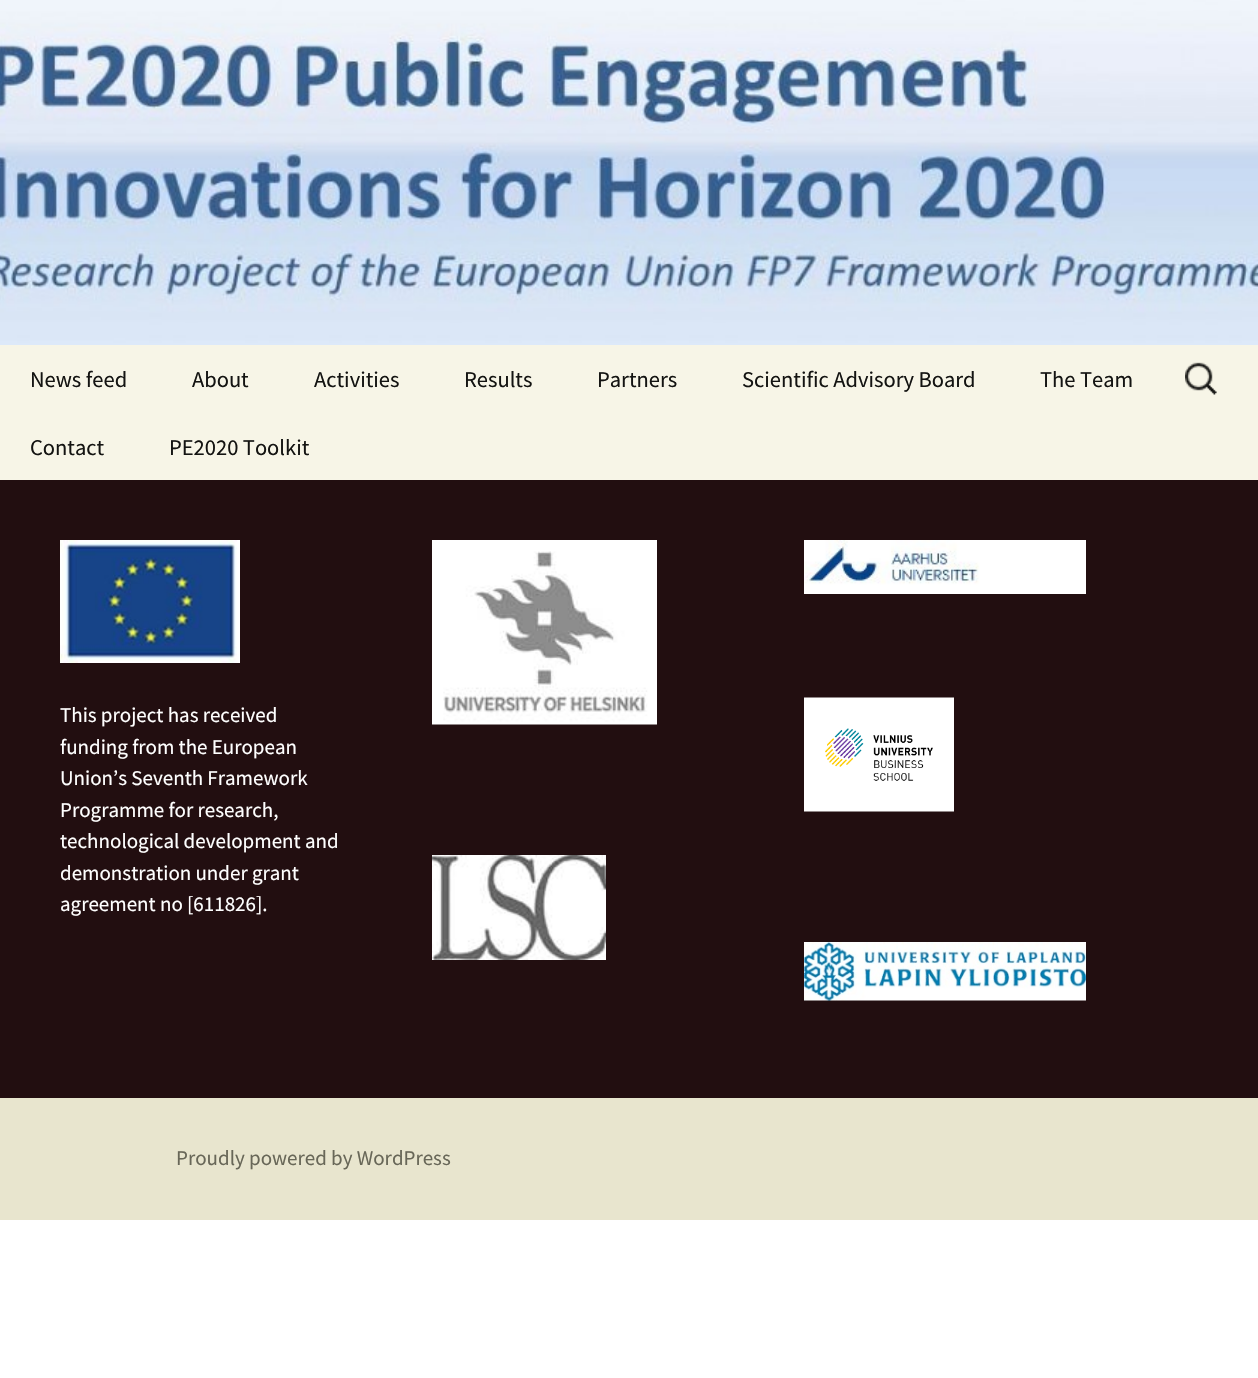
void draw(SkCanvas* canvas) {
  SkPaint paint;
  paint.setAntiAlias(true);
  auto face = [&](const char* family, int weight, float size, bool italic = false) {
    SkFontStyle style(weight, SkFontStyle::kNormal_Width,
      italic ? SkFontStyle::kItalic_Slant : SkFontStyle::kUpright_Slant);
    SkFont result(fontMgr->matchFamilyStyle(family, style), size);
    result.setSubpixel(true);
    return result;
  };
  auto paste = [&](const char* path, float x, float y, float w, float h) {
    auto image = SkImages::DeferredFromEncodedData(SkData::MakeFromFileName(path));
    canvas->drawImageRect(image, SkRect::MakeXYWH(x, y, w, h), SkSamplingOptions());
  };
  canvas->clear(0xffffffff);
  paste("img/1.png", 0, 0, 1258, 345);
  paint.setColor(0xfff7f5e7);
  canvas->drawRect(SkRect::MakeXYWH(0, 345, 1258, 135), paint);
  paste("img/2.png", 1185, 362, 32, 33);
  paint.setColor(0xffe8e5ce);
  canvas->drawRect(SkRect::MakeXYWH(0, 1098, 1258, 122), paint);
  paint.setColor(0xff220e10);
  canvas->drawRect(SkRect::MakeXYWH(0, 480, 1258, 618), paint);
  paste("img/3.png", 60, 540, 180, 123);
  paste("img/4.png", 432, 540, 225, 185);
  paste("img/5.png", 804, 540, 282, 54);
  paste("img/6.png", 804, 697, 150, 115);
  paste("img/7.png", 432, 855, 174, 105);
  paste("img/8.png", 804, 942, 282, 59);
  auto f0 = face("Source Sans Pro", 400, 22.5f);
  paint.setColor(0xff141412);
  {
    const struct { const char* s; float x, y; } items[] = {
      {"News feed", 30, 387},
      {"About", 192, 387},
      {"Activities", 314, 387},
      {"Results", 464, 387},
      {"Partners", 597, 387},
      {"Scientific Advisory Board", 742, 387},
      {"The Team", 1040, 387},
      {"Contact", 30, 455},
      {"PE2020 Toolkit", 169, 455},
    };
    for (auto [s, x, y] : items) {
      canvas->drawString(s, x, y, f0, paint);
    }
  }
  auto f1 = face("Source Sans Pro", 400, 21);
  paint.setColor(0xffffffff);
  {
    const struct { const char* s; float x, y; } items[] = {
      {"This project has received", 60, 722},
      {"funding from the European", 60, 754},
      {"Union’s Seventh Framework", 60, 785},
      {"Programme for research,", 60, 817},
      {"technological development and", 60, 848},
      {"demonstration under grant", 60, 880},
      {"agreement no [611826].", 60, 911},
    };
    for (auto [s, x, y] : items) {
      canvas->drawString(s, x, y, f1, paint);
    }
  }
  paint.setColor(0xff686758);
  canvas->drawString("Proudly powered by WordPress", 176, 1165, f1, paint);
}
